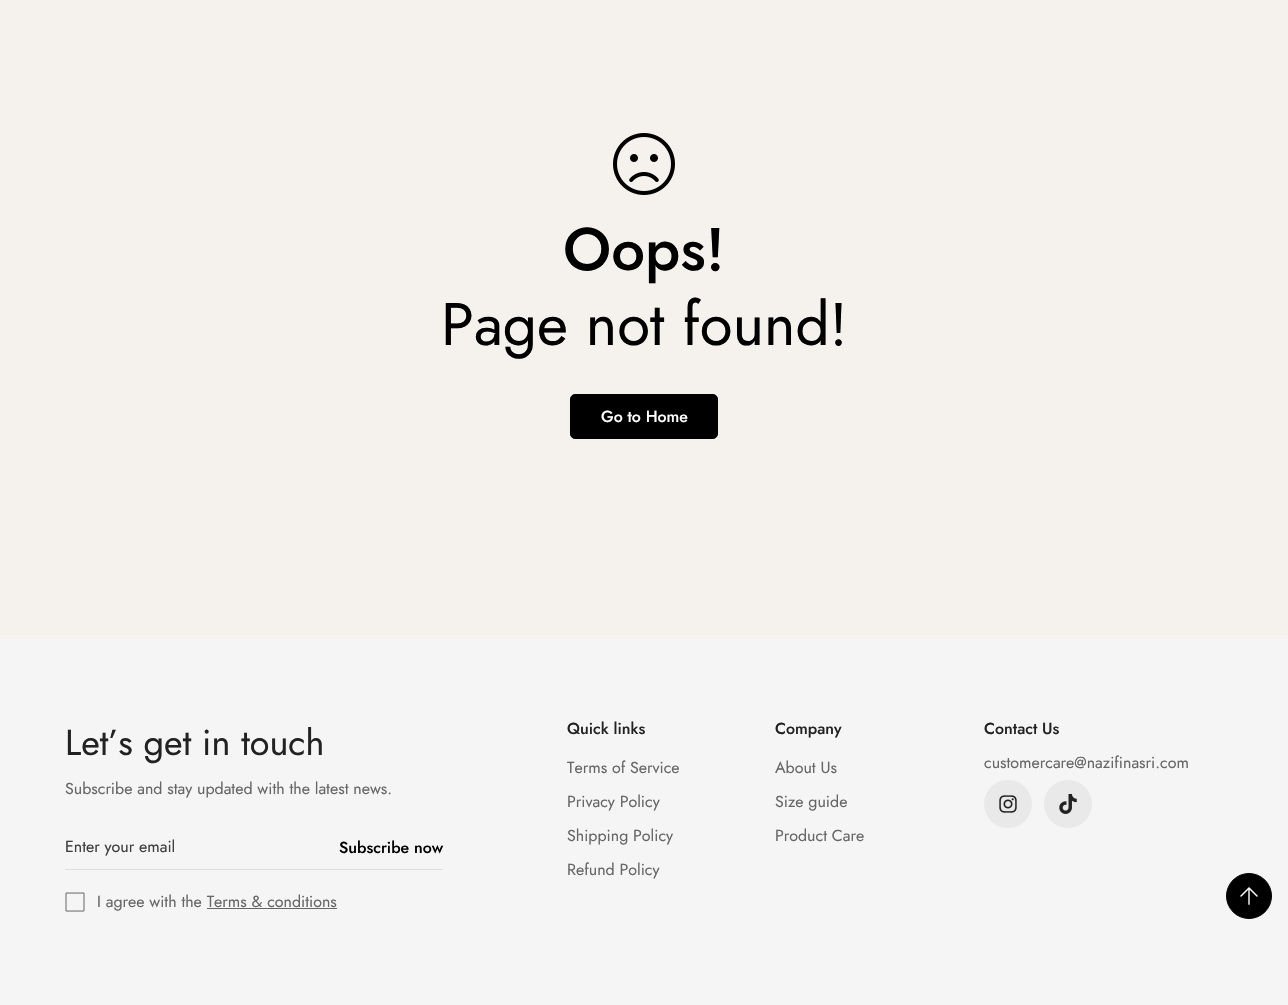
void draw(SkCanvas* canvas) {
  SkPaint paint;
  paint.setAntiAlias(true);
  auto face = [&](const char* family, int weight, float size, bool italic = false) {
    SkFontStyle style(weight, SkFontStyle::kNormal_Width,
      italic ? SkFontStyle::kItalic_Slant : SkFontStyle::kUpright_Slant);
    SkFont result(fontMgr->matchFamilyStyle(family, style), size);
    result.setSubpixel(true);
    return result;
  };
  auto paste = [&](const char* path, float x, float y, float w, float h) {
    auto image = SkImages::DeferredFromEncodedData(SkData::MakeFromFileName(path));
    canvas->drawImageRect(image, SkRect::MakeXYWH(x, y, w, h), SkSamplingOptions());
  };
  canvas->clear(0xfff5f1ed);
  paste("img/1.png", 613, 133, 62, 62);
  paint.setColor(0xff000000);
  canvas->drawRoundRect(SkRect::MakeXYWH(570.5f, 394.5f, 147, 44), 4.5f, 4.5f, paint);
  paint.setStroke(true);
  paint.setStrokeWidth(1);
  canvas->drawRoundRect(SkRect::MakeXYWH(570.5f, 394.5f, 147, 44), 4.5f, 4.5f, paint);
  paint.setStroke(false);
  paint.setColor(0xfff5f5f5);
  canvas->drawRect(SkRect::MakeXYWH(0, 639, 1288, 366), paint);
  paint.setColor(0xffdedede);
  canvas->drawRect(SkRect::MakeXYWH(65, 869, 378, 1), paint);
  paste("img/2.png", 65, 892, 20, 20);
  paint.setColor(0xff666666);
  canvas->drawRect(SkRect::MakeXYWH(207, 908, 130, 1), paint);
  paint.setColor(0xffe9e9e9);
  canvas->drawCircle(1008, 804, 24, paint);
  paste("img/3.png", 999, 795, 18, 18);
  canvas->drawCircle(1068, 804, 24, paint);
  paste("img/4.png", 1059, 794, 18, 20);
  paint.setColor(0xff000000);
  canvas->drawCircle(1249, 896, 22.5f, paint);
  paint.setStroke(true);
  canvas->drawCircle(1249, 896, 22.5f, paint);
  paste("img/5.png", 1240, 887, 18, 18);
  auto f0 = face("Jost", 500, 60);
  paint.setStroke(false);
  canvas->drawString("Oops!", 563, 270, f0, paint);
  auto f1 = face("Jost", 400, 60);
  canvas->drawString("Page not found!", 441, 345, f1, paint);
  auto f2 = face("Jost", 500, 16);
  paint.setColor(0xffffffff);
  canvas->drawString("Go to Home", 601, 422, f2, paint);
  auto f3 = face("Jost", 400, 36);
  paint.setColor(0xff222222);
  canvas->drawString("Let’s get in touch", 65, 755, f3, paint);
  auto f4 = face("Jost", 400, 16);
  paint.setColor(0xff666666);
  canvas->drawString("Subscribe and stay updated with the latest news.", 65, 794, f4, paint);
  paint.setColor(0xff3d3d3d);
  canvas->drawString("Enter your email", 65, 852, f4, paint);
  paint.setColor(0xff000000);
  canvas->drawString("Subscribe now", 339, 853, f2, paint);
  paint.setColor(0xff666666);
  canvas->drawString("I agree with the Terms & conditions", 97, 907, f4, paint);
  paint.setColor(0xff222222);
  canvas->drawString("Quick links", 567, 734, f2, paint);
  paint.setColor(0xff666666);
  {
    const struct { const char* s; float x, y; } items[] = {
      {"Terms of Service", 567, 773},
      {"Privacy Policy", 567, 807},
      {"Shipping Policy", 567, 841},
      {"Refund Policy", 567, 875},
    };
    for (auto [s, x, y] : items) {
      canvas->drawString(s, x, y, f4, paint);
    }
  }
  paint.setColor(0xff222222);
  canvas->drawString("Company", 775, 734, f2, paint);
  paint.setColor(0xff666666);
  {
    const struct { const char* s; float x, y; } items[] = {
      {"About Us", 775, 773},
      {"Size guide", 775, 807},
      {"Product Care", 775, 841},
    };
    for (auto [s, x, y] : items) {
      canvas->drawString(s, x, y, f4, paint);
    }
  }
  paint.setColor(0xff222222);
  canvas->drawString("Contact Us", 984, 734, f2, paint);
  paint.setColor(0xff666666);
  canvas->drawString("customercare@nazifinasri.com", 984, 768, f4, paint);
}
